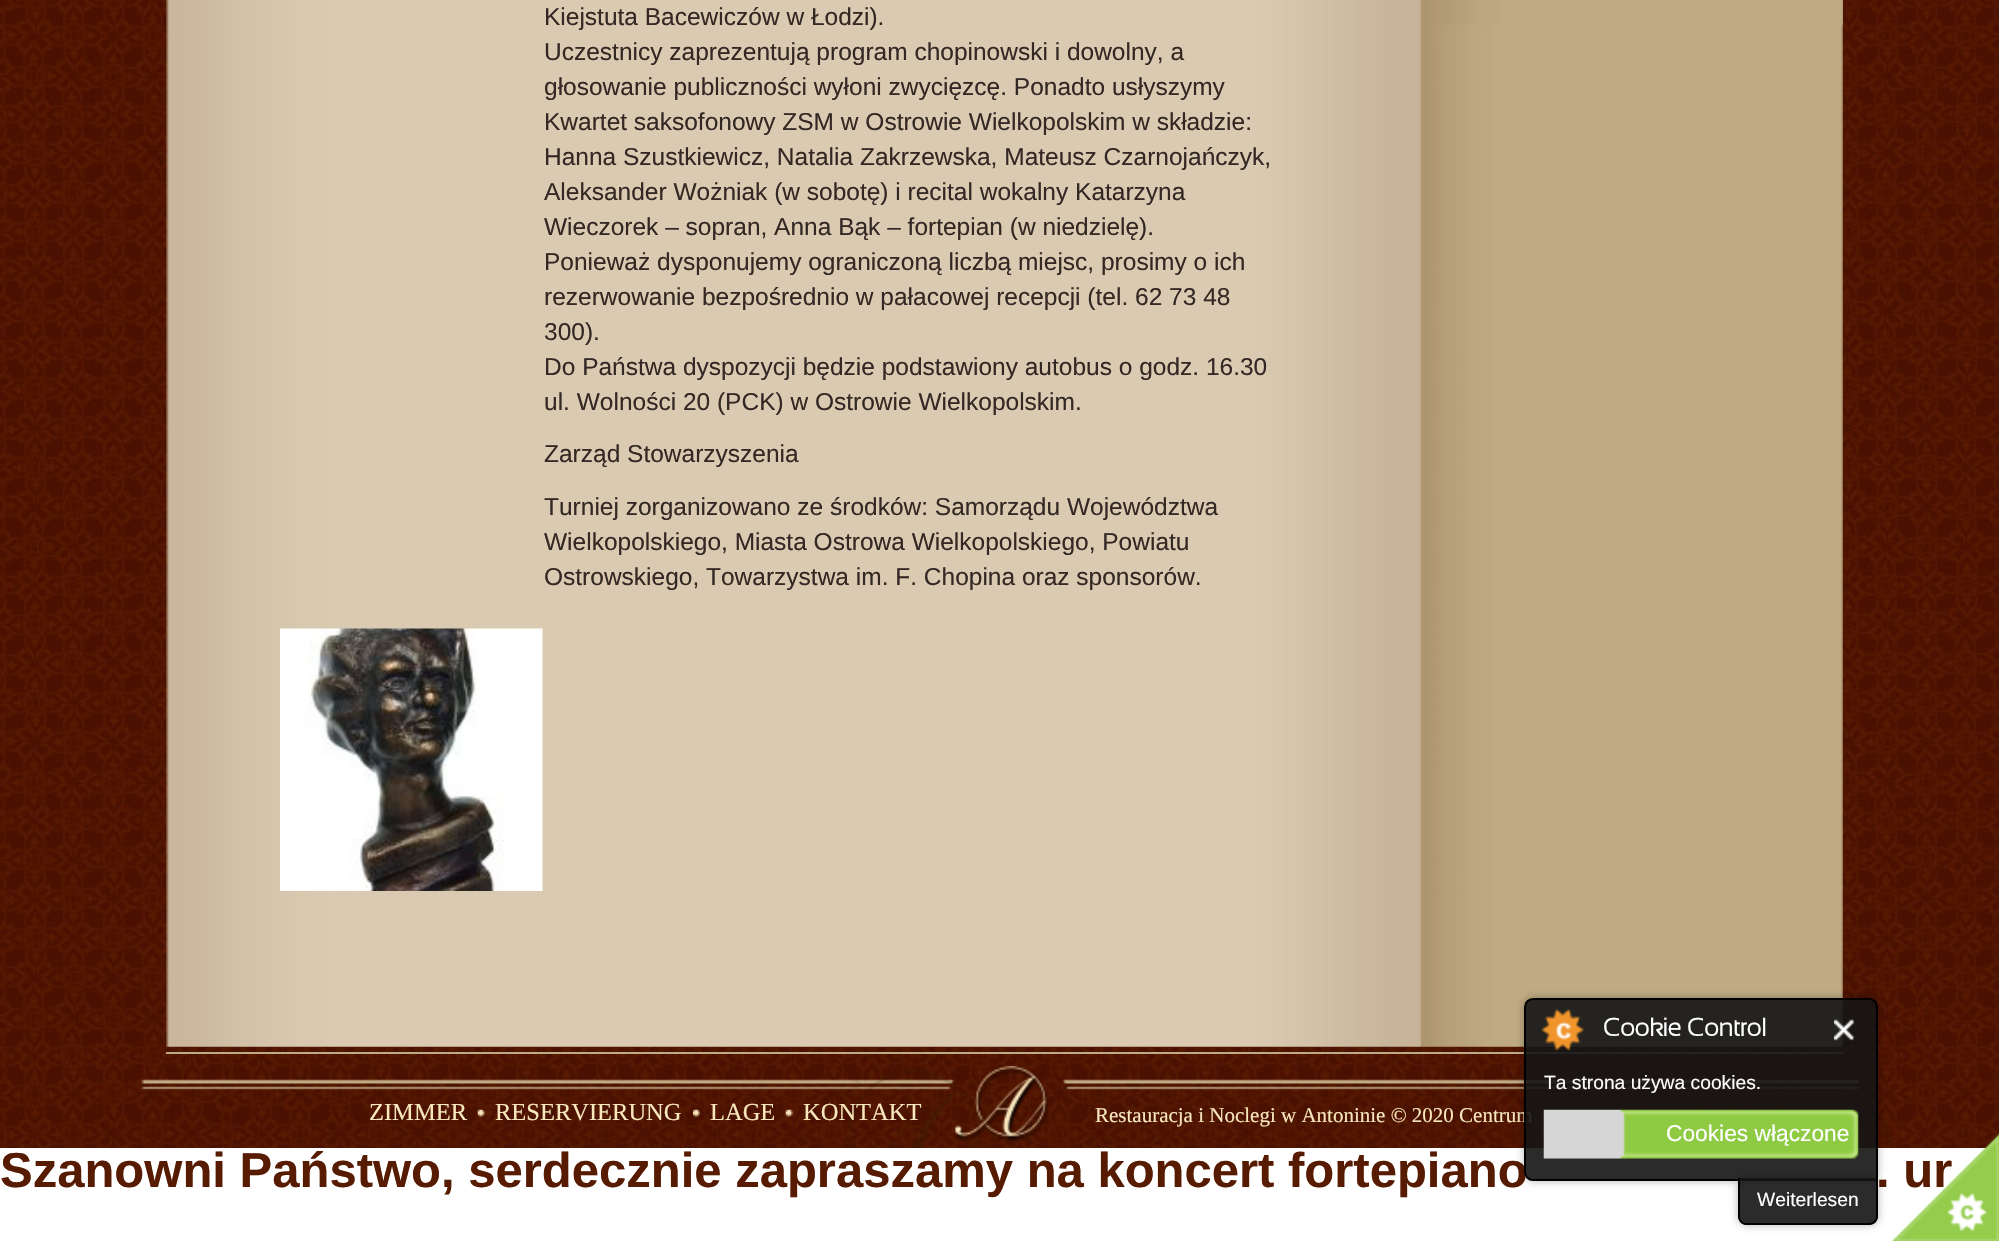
void draw(SkCanvas* canvas) {
  SkPaint paint;
  paint.setAntiAlias(true);
  auto face = [&](const char* family, int weight, float size, bool italic = false) {
    SkFontStyle style(weight, SkFontStyle::kNormal_Width,
      italic ? SkFontStyle::kItalic_Slant : SkFontStyle::kUpright_Slant);
    SkFont result(fontMgr->matchFamilyStyle(family, style), size);
    result.setSubpixel(true);
    return result;
  };
  auto paste = [&](const char* path, float x, float y, float w, float h) {
    auto image = SkImages::DeferredFromEncodedData(SkData::MakeFromFileName(path));
    canvas->drawImageRect(image, SkRect::MakeXYWH(x, y, w, h), SkSamplingOptions());
  };
  auto shape = [&](const char* data, bool evenOdd = false) {
    SkPath result = *SkParsePath::FromSVGString(data);
    if (evenOdd) result.setFillType(SkPathFillType::kEvenOdd);
    return result;
  };
  canvas->clear(0xffffffff);
  paste("img/1.png", 0, 0, 1999, 1148);
  paint.setColor(0xffbfaa83);
  canvas->drawRect(SkRect::MakeXYWH(166, 1052, 1677, 2), paint);
  paste("img/2.png", 166, 0, 1677, 1047);
  paste("img/3.png", 280, 628, 263, 263);
  paste("img/4.png", 1444, 0, 399, 25);
  paste("img/10.png", 141, 1066, 1719, 76);
  paste("img/5.png", 843, 1056, 1062, 92);
  paste("img/11.png", 477, 1109, 8, 8);
  paste("img/12.png", 693, 1109, 7, 8);
  paste("img/13.png", 785, 1109, 8, 8);
  auto f0 = face("Liberation Sans", 400, 24.5f);
  paint.setColor(0xff342824);
  {
    const struct { const char* s; float x, y; } items[] = {
      {"Kiejstuta Bacewiczów w Łodzi).", 544, 25},
      {"Uczestnicy zaprezentują program chopinowski i dowolny, a", 544, 60},
      {"głosowanie publiczności wyłoni zwycięzcę. Ponadto usłyszymy", 544, 95},
      {"Kwartet saksofonowy ZSM w Ostrowie Wielkopolskim w składzie:", 544, 130},
      {"Hanna Szustkiewicz, Natalia Zakrzewska, Mateusz Czarnojańczyk,", 544, 165},
      {"Aleksander Wożniak (w sobotę) i recital wokalny Katarzyna", 544, 200},
      {"Wieczorek – sopran, Anna Bąk – fortepian (w niedzielę).", 544, 235},
      {"Ponieważ dysponujemy ograniczoną liczbą miejsc, prosimy o ich", 544, 270},
      {"rezerwowanie bezpośrednio w pałacowej recepcji (tel. 62 73 48", 544, 305},
      {"300).", 544, 340},
      {"Do Państwa dyspozycji będzie podstawiony autobus o godz. 16.30", 544, 375},
      {"ul. Wolności 20 (PCK) w Ostrowie Wielkopolskim.", 544, 410},
      {"Zarząd Stowarzyszenia", 544, 462},
      {"Turniej zorganizowano ze środków: Samorządu Województwa", 544, 515},
      {"Wielkopolskiego, Miasta Ostrowa Wielkopolskiego, Powiatu", 544, 550},
      {"Ostrowskiego, Towarzystwa im. F. Chopina oraz sponsorów.", 544, 585},
    };
    for (auto [s, x, y] : items) {
      canvas->drawString(s, x, y, f0, paint);
    }
  }
  auto f1 = face("Liberation Serif", 400, 24.5f);
  paint.setColor(0xfff8e6bc);
  {
    const struct { const char* s; float x, y; } items[] = {
      {"ZIMMER", 369, 1120},
      {"RESERVIERUNG", 495, 1120},
      {"LAGE", 710, 1120},
      {"KONTAKT", 803, 1120},
    };
    for (auto [s, x, y] : items) {
      canvas->drawString(s, x, y, f1, paint);
    }
  }
  auto f2 = face("Liberation Serif", 400, 21);
  canvas->drawString("Restauracja i Noclegi w Antoninie © 2020 Centrum", 1095, 1122, f2, paint);
  auto f3 = face("Liberation Sans", 700, 49);
  paint.setColor(0xff571b01);
  canvas->drawString("Szanowni Państwo, serdecznie zapraszamy na koncert fortepiano", 0, 1187, f3, paint);
  canvas->drawString(". ur", 1876, 1187, f3, paint);
  paste("img/9.png", 1891, 1134, 108, 107);
  canvas->save();
  canvas->clipPath(shape("M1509 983H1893V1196H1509ZM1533 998H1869C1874 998 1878 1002 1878 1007V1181H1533C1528 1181 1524 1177 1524 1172V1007C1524 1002 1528 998 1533 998Z", true), true);
  paint.setColor(0x4d000000);
  paint.setMaskFilter(SkMaskFilter::MakeBlur(kNormal_SkBlurStyle, 4.5f));
  canvas->drawRoundRect(SkRect::MakeXYWH(1524, 998, 354, 183), 9, 9, paint);
  paint.setMaskFilter(nullptr);
  canvas->restore();
  paint.setColor(0xe6141414);
  canvas->drawPath(shape("M1533 999H1869C1873.5 999 1877 1002.5 1877 1007V1180H1533C1528.5 1180 1525 1176.5 1525 1172V1007C1525 1002.5 1528.5 999 1533 999Z"), paint);
  paint.setStroke(true);
  paint.setStrokeWidth(2);
  paint.setColor(0xff000000);
  canvas->drawPath(shape("M1533 999H1869C1873.5 999 1877 1002.5 1877 1007V1180H1533C1528.5 1180 1525 1176.5 1525 1172V1007C1525 1002.5 1528.5 999 1533 999Z"), paint);
  paste("img/7.png", 1834, 1018, 21, 23);
  paste("img/8.png", 1543, 1109, 316, 50);
  auto f4 = face("Liberation Sans", 400, 22.75f);
  paint.setStroke(false);
  paint.setColor(0xffffffff);
  canvas->drawString("Cookies włączone", 1666, 1141, f4, paint);
  auto f5 = face("Liberation Sans", 400, 19.25f);
  canvas->drawString("Ta strona używa cookies.", 1544, 1089, f5, paint);
  auto f6 = face("Sansation", 700, 25);
  canvas->drawString("Cookie Control", 1603, 1036, f6, paint);
  paste("img/6.png", 1541, 1009, 44, 42);
  canvas->save();
  canvas->clipPath(shape("M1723 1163H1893V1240H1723ZM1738 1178H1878V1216C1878 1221 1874 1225 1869 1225H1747C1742 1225 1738 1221 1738 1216Z", true), true);
  paint.setColor(0x4d000000);
  paint.setMaskFilter(SkMaskFilter::MakeBlur(kNormal_SkBlurStyle, 4.5f));
  canvas->drawRoundRect(SkRect::MakeXYWH(1738, 1178, 140, 47), 9, 9, paint);
  paint.setMaskFilter(nullptr);
  canvas->restore();
  paint.setColor(0xe6141414);
  canvas->drawPath(shape("M1738 1178H1878V1216C1878 1221 1874 1225 1869 1225H1747C1742 1225 1738 1221 1738 1216Z"), paint);
  paint.setColor(0xff000000);
  canvas->drawPath(shape("M1738 1178H1878V1216C1878 1221 1874 1225 1869 1225H1746C1742 1225 1738 1221 1738 1216ZM1740 1178H1876V1216C1876 1220 1873 1223 1869 1223H1746C1743 1223 1740 1220 1740 1216Z", true), paint);
  paint.setColor(0xffffffff);
  canvas->drawString("Weiterlesen", 1757, 1206, f5, paint);
}
